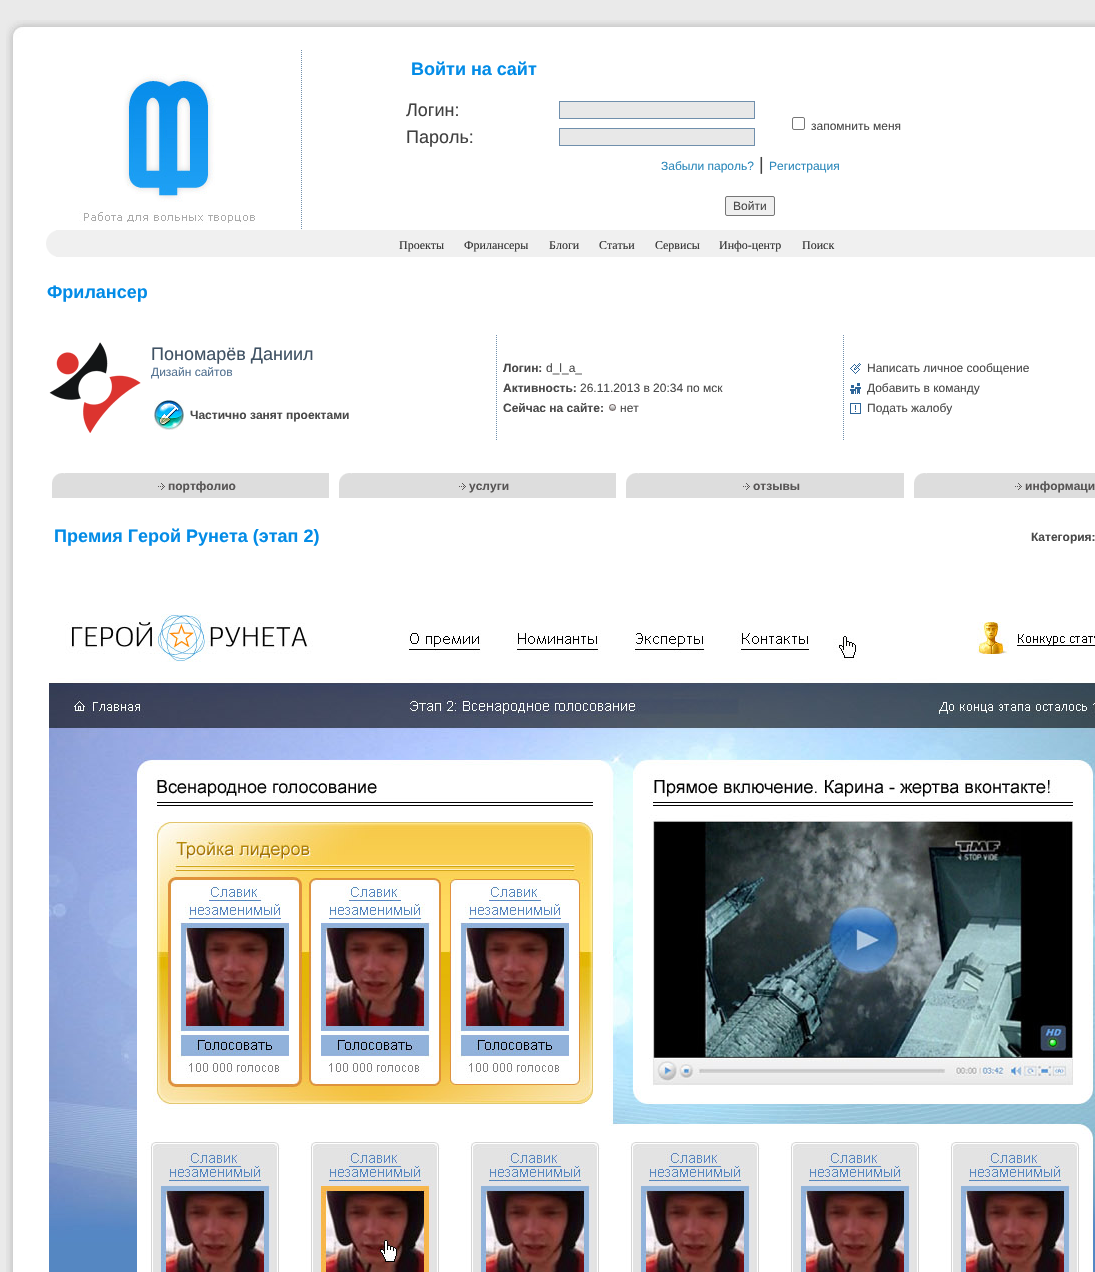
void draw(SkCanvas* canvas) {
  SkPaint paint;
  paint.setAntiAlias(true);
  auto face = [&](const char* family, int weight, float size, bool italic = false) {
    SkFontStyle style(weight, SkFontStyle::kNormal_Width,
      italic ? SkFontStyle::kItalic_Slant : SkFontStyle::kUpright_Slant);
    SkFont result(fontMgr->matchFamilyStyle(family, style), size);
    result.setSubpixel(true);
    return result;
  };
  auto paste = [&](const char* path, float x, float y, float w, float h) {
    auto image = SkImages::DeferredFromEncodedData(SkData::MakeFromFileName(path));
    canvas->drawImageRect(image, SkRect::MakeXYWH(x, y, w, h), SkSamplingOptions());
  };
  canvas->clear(0xffeaeaea);
  paste("img/1.png", 6, 20, 29, 30);
  paste("img/2.png", 35, 20, 1060, 30);
  paste("img/3.png", 6, 50, 29, 1222);
  paint.setColor(0xffffffff);
  canvas->drawRect(SkRect::MakeXYWH(35, 50, 1060, 1222), paint);
  paste("img/4.png", 301, 50, 1, 179);
  paste("img/5.png", 79, 74, 176, 151);
  paint.setColor(0xffe8e8e8);
  canvas->drawRect(SkRect::MakeXYWH(559.5f, 101.5f, 195, 17), paint);
  paint.setStroke(true);
  paint.setStrokeWidth(1);
  paint.setColor(0xff708fac);
  canvas->drawRect(SkRect::MakeXYWH(559.5f, 101.5f, 195, 17), paint);
  paint.setColor(0xff767676);
  canvas->drawRoundRect(SkRect::MakeXYWH(792.5f, 117.5f, 12, 12), 1.5f, 1.5f, paint);
  paint.setStroke(false);
  paint.setColor(0xffe8e8e8);
  canvas->drawRect(SkRect::MakeXYWH(559.5f, 128.5f, 195, 17), paint);
  paint.setStroke(true);
  paint.setColor(0xff708fac);
  canvas->drawRect(SkRect::MakeXYWH(559.5f, 128.5f, 195, 17), paint);
  paint.setStroke(false);
  paint.setColor(0xffefefef);
  canvas->drawRoundRect(SkRect::MakeXYWH(725.5f, 196.5f, 49, 19), 1.5f, 1.5f, paint);
  paint.setStroke(true);
  paint.setColor(0xff767676);
  canvas->drawRoundRect(SkRect::MakeXYWH(725.5f, 196.5f, 49, 19), 1.5f, 1.5f, paint);
  paste("img/6.png", 46, 230, 23, 27);
  paint.setStroke(false);
  paint.setColor(0xfff0f0f0);
  canvas->drawRect(SkRect::MakeXYWH(69, 230, 1026, 27), paint);
  paste("img/7.png", 49, 342, 92, 91);
  paste("img/8.png", 496, 335, 1, 105);
  paste("img/9.png", 154, 400, 30, 30);
  paste("img/8.png", 843, 335, 1, 105);
  paste("img/10.png", 609, 404, 7, 7);
  paste("img/11.png", 850, 363, 11, 11);
  paste("img/12.png", 850, 383, 11, 11);
  paste("img/13.png", 850, 403, 11, 11);
  paste("img/14.png", 52, 473, 13, 25);
  paint.setColor(0xffdddddd);
  canvas->drawRect(SkRect::MakeXYWH(65, 473, 264, 25), paint);
  paste("img/15.png", 158, 483, 7, 7);
  paste("img/14.png", 339, 473, 13, 25);
  canvas->drawRect(SkRect::MakeXYWH(352, 473, 264, 25), paint);
  paste("img/15.png", 459, 483, 7, 7);
  paste("img/14.png", 626, 473, 13, 25);
  canvas->drawRect(SkRect::MakeXYWH(639, 473, 265, 25), paint);
  paste("img/15.png", 743, 483, 7, 7);
  paste("img/14.png", 914, 473, 13, 25);
  canvas->drawRect(SkRect::MakeXYWH(927, 473, 168, 25), paint);
  paste("img/15.png", 1015, 483, 7, 7);
  paste("img/16.png", 49, 614, 1046, 658);
  auto f0 = face("Liberation Sans", 700, 18);
  paint.setColor(0xff038ce7);
  canvas->drawString("Войти на сайт", 411, 75, f0, paint);
  auto f1 = face("Liberation Sans", 400, 18);
  paint.setColor(0xff414141);
  canvas->drawString("Логин:", 406, 116, f1, paint);
  auto f2 = face("Liberation Sans", 400, 12);
  paint.setColor(0xff494949);
  canvas->drawString("запомнить меня", 811, 130, f2, paint);
  paint.setColor(0xff414141);
  canvas->drawString("Пароль:", 406, 143, f1, paint);
  paint.setColor(0xff2d89bb);
  canvas->drawString("Забыли пароль?", 661, 170, f2, paint);
  paint.setColor(0xff414141);
  canvas->drawString("|", 759, 170, f1, paint);
  paint.setColor(0xff2d89bb);
  canvas->drawString("Регистрация", 769, 170, f2, paint);
  paint.setColor(0xff494949);
  canvas->drawString("Войти", 733, 210, f2, paint);
  auto f3 = face("Liberation Serif", 400, 12);
  paint.setColor(0xff333333);
  {
    const struct { const char* s; float x, y; } items[] = {
      {"Проекты", 399, 249},
      {"Фрилансеры", 464, 249},
      {"Блоги", 549, 249},
      {"Статьи", 599, 249},
      {"Сервисы", 655, 249},
      {"Инфо-центр", 719, 249},
      {"Поиск", 802, 249},
    };
    for (auto [s, x, y] : items) {
      canvas->drawString(s, x, y, f3, paint);
    }
  }
  paint.setColor(0xff038ce7);
  canvas->drawString("Фрилансер", 47, 298, f0, paint);
  paint.setColor(0xff405264);
  canvas->drawString("Пономарёв Даниил", 151, 360, f1, paint);
  paint.setColor(0xff547392);
  canvas->drawString("Дизайн сайтов", 151, 376, f2, paint);
  auto f4 = face("Liberation Sans", 700, 12);
  paint.setColor(0xff494949);
  canvas->drawString("Частично занят проектами", 190, 419, f4, paint);
  canvas->drawString("Логин:", 503, 372, f4, paint);
  canvas->drawString("d_l_a_", 546, 372, f2, paint);
  canvas->drawString("Активность:", 503, 392, f4, paint);
  canvas->drawString("26.11.2013 в 20:34 по мск", 580, 392, f2, paint);
  canvas->drawString("Сейчас на сайте:", 503, 412, f4, paint);
  {
    const struct { const char* s; float x, y; } items[] = {
      {"нет", 620, 412},
      {"Написать личное сообщение", 867, 372},
      {"Добавить в команду", 867, 392},
      {"Подать жалобу", 867, 412},
    };
    for (auto [s, x, y] : items) {
      canvas->drawString(s, x, y, f2, paint);
    }
  }
  paint.setColor(0xff575555);
  {
    const struct { const char* s; float x, y; } items[] = {
      {"портфолио", 168, 490},
      {"услуги", 469, 490},
      {"отзывы", 753, 490},
      {"информаци", 1025, 490},
    };
    for (auto [s, x, y] : items) {
      canvas->drawString(s, x, y, f4, paint);
    }
  }
  paint.setColor(0xff038ce7);
  canvas->drawString("Премия Герой Рунета (этап 2)", 54, 542, f0, paint);
  paint.setColor(0xff494949);
  canvas->drawString("Категория:", 1031, 541, f4, paint);
}
